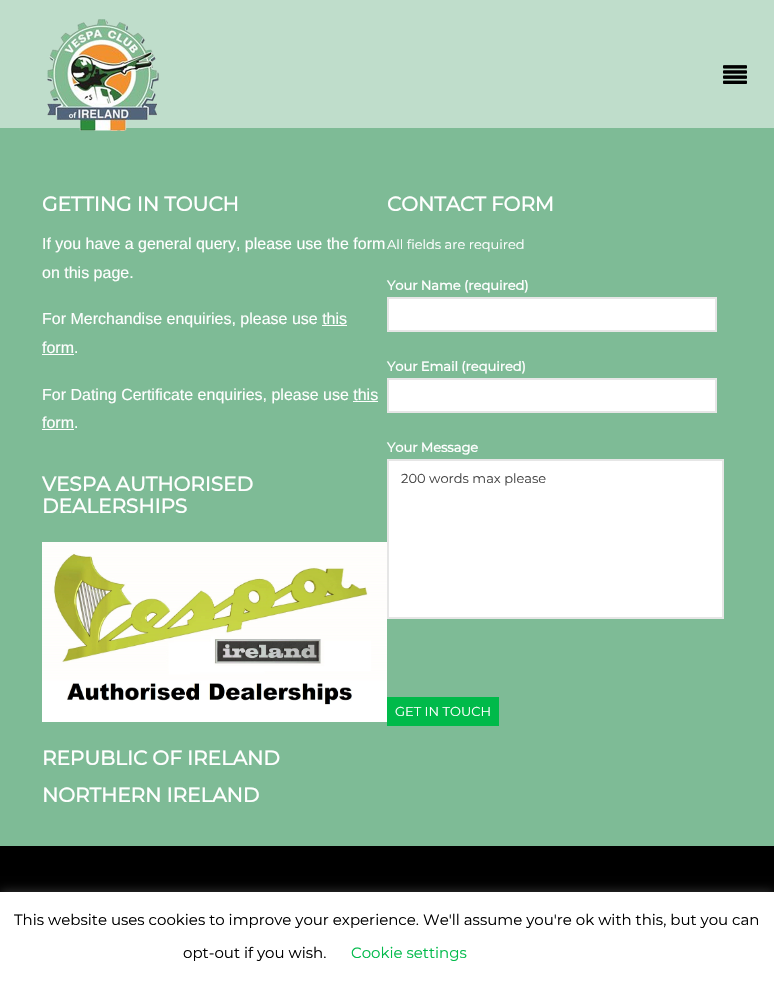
void draw(SkCanvas* canvas) {
  SkPaint paint;
  paint.setAntiAlias(true);
  auto face = [&](const char* family, int weight, float size, bool italic = false) {
    SkFontStyle style(weight, SkFontStyle::kNormal_Width,
      italic ? SkFontStyle::kItalic_Slant : SkFontStyle::kUpright_Slant);
    SkFont result(fontMgr->matchFamilyStyle(family, style), size);
    result.setSubpixel(true);
    return result;
  };
  auto paste = [&](const char* path, float x, float y, float w, float h) {
    auto image = SkImages::DeferredFromEncodedData(SkData::MakeFromFileName(path));
    canvas->drawImageRect(image, SkRect::MakeXYWH(x, y, w, h), SkSamplingOptions());
  };
  canvas->clear(0xffbfddcb);
  paint.setColor(0xff7ebb96);
  canvas->drawRect(SkRect::MakeXYWH(0, 128, 774, 718), paint);
  paste("img/1.png", 47, 19, 112, 112);
  paste("img/2.png", 723, 65, 24, 19);
  {
    const struct { float x, y, w, h; SkColor color; } items[] = {
      {322, 325, 25, 1, 0xffffffff},
      {42, 354, 32, 1, 0xffffffff},
      {353, 401, 25, 1, 0xffffffff},
      {42, 429, 32, 1, 0xffffffff},
    };
    for (auto [x, y, w, h, color] : items) {
      paint.setColor(color);
      canvas->drawRect(SkRect::MakeXYWH(x, y, w, h), paint);
    }
  }
  paste("img/3.png", 42, 542, 345, 180);
  canvas->drawRect(SkRect::MakeXYWH(388, 298, 328, 33), paint);
  paint.setStroke(true);
  paint.setStrokeWidth(2);
  paint.setColor(0xffe6e6e6);
  canvas->drawRect(SkRect::MakeXYWH(388, 298, 328, 33), paint);
  paint.setStroke(false);
  paint.setColor(0xffffffff);
  canvas->drawRect(SkRect::MakeXYWH(388, 379, 328, 33), paint);
  paint.setStroke(true);
  paint.setColor(0xffe6e6e6);
  canvas->drawRect(SkRect::MakeXYWH(388, 379, 328, 33), paint);
  paint.setStroke(false);
  paint.setColor(0xffffffff);
  canvas->drawRect(SkRect::MakeXYWH(388, 460, 335, 158), paint);
  paint.setStroke(true);
  paint.setColor(0xffe6e6e6);
  canvas->drawRect(SkRect::MakeXYWH(388, 460, 335, 158), paint);
  paint.setStroke(false);
  paint.setColor(0xff00ba4a);
  canvas->drawRect(SkRect::MakeXYWH(387, 697, 112, 29), paint);
  paint.setColor(0xff000000);
  canvas->drawRect(SkRect::MakeXYWH(0, 846, 774, 46), paint);
  paint.setColor(0x4dacabab);
  paint.setMaskFilter(SkMaskFilter::MakeBlur(kNormal_SkBlurStyle, 5));
  canvas->drawRect(SkRect::MakeXYWH(0, 891, 774, 94), paint);
  paint.setMaskFilter(nullptr);
  paint.setColor(0xffffffff);
  canvas->drawRect(SkRect::MakeXYWH(0, 892, 774, 94), paint);
  auto f0 = face("Montserrat", 700, 20);
  canvas->drawString("GETTING IN TOUCH", 42, 211, f0, paint);
  auto f1 = face("Liberation Sans", 400, 16);
  {
    const struct { const char* s; float x, y; } items[] = {
      {"If you have a general query, please use the form", 42, 249},
      {"on this page.", 42, 278},
      {"For Merchandise enquiries, please use this", 42, 324},
      {"form.", 42, 353},
      {"For Dating Certificate enquiries, please use this", 42, 400},
      {"form.", 42, 428},
    };
    for (auto [s, x, y] : items) {
      canvas->drawString(s, x, y, f1, paint);
    }
  }
  {
    const struct { const char* s; float x, y; } items[] = {
      {"VESPA AUTHORISED", 42, 491},
      {"DEALERSHIPS", 42, 513},
      {"REPUBLIC OF IRELAND", 42, 765},
      {"NORTHERN IRELAND", 42, 802},
      {"CONTACT FORM", 387, 211},
    };
    for (auto [s, x, y] : items) {
      canvas->drawString(s, x, y, f0, paint);
    }
  }
  auto f2 = face("Montserrat", 100, 13);
  canvas->drawString("All fields are required", 387, 249, f2, paint);
  auto f3 = face("Montserrat", 700, 13);
  {
    const struct { const char* s; float x, y; } items[] = {
      {"Your Name (required)", 387, 290},
      {"Your Email (required)", 387, 371},
      {"Your Message", 387, 452},
    };
    for (auto [s, x, y] : items) {
      canvas->drawString(s, x, y, f3, paint);
    }
  }
  paint.setColor(0xff444444);
  canvas->drawString("200 words max please", 401, 483, f2, paint);
  paint.setColor(0xffffffff);
  canvas->drawString("GET IN TOUCH", 395, 716, f2, paint);
  auto f4 = face("Montserrat", 100, 15);
  paint.setColor(0xff000000);
  canvas->drawString("This website uses cookies to improve your experience. We'll assume you're ok with this, but you can", 14, 925, f4, paint);
  canvas->drawString("opt-out if you wish.", 183, 958, f4, paint);
  paint.setColor(0xff00ba4a);
  canvas->drawString("Cookie settings", 351, 958, f4, paint);
}
